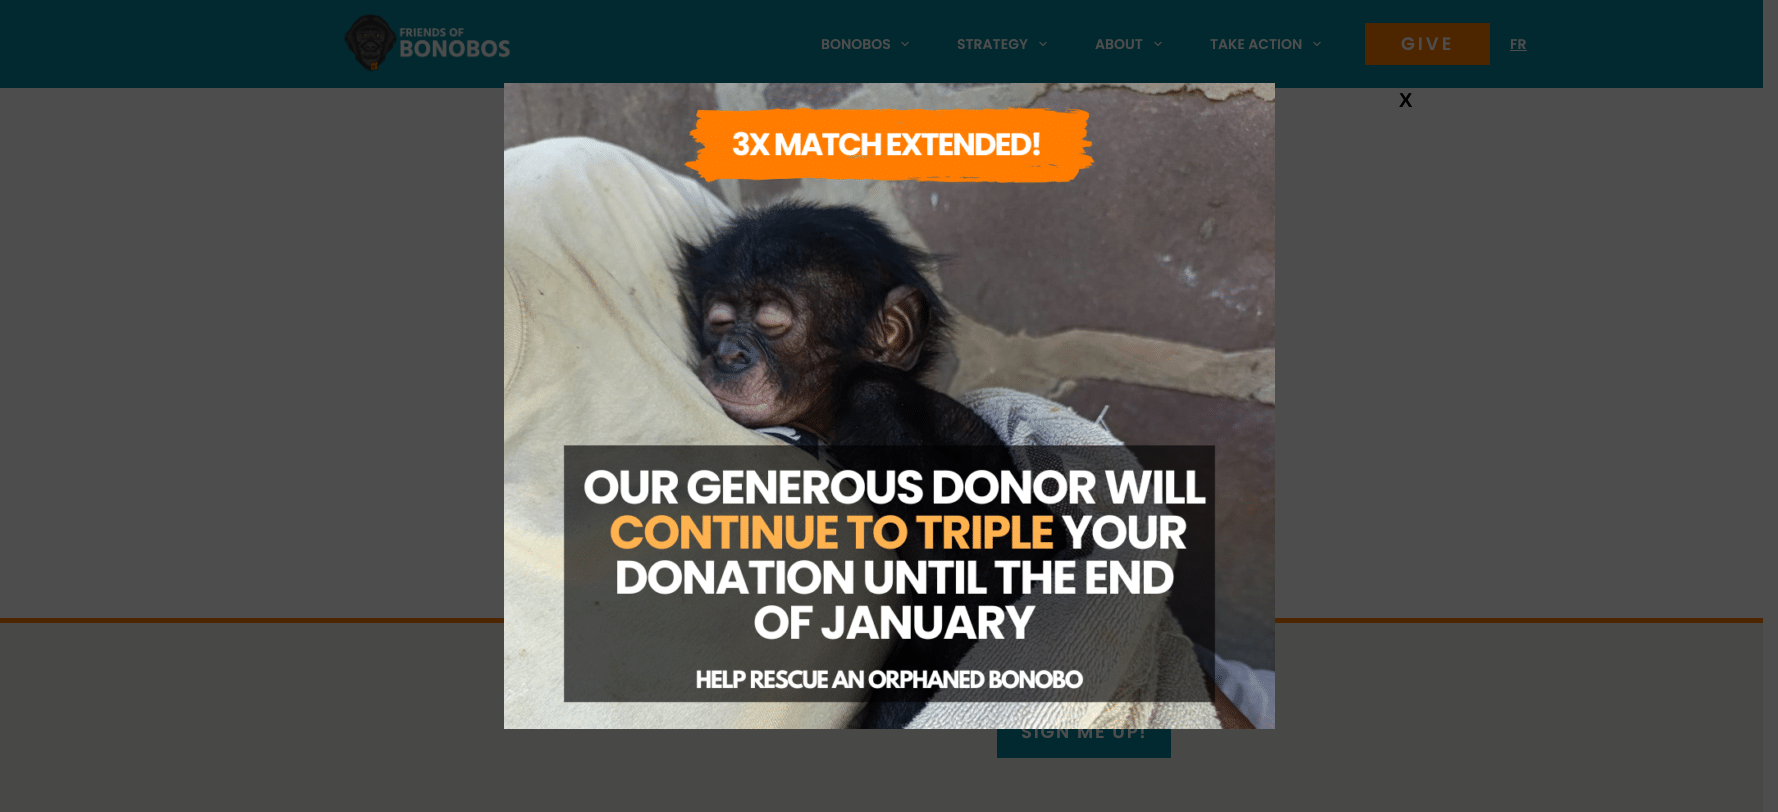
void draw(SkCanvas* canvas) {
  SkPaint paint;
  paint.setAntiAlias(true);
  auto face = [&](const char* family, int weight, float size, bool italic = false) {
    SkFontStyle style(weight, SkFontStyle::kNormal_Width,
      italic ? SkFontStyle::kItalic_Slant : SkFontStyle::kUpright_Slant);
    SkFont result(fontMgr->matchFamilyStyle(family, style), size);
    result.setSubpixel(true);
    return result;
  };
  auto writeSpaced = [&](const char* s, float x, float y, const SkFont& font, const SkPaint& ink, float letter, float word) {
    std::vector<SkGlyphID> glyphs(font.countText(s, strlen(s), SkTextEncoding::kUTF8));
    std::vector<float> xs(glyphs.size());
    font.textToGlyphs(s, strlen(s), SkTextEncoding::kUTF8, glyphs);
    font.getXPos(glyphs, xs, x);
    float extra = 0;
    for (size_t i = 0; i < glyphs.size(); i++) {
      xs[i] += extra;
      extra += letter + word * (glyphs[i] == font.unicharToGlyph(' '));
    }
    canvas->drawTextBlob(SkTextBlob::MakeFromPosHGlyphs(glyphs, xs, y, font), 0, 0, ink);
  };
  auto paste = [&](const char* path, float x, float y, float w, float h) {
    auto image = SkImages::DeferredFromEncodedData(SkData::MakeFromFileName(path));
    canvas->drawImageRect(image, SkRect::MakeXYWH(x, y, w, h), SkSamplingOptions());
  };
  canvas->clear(0xff4d4d4d);
  paint.setColor(0xff01292f);
  canvas->drawRect(SkRect::MakeXYWH(0, 0, 1763, 88), paint);
  paste("img/1.png", 343, 14, 168, 58);
  paste("img/2.png", 901, 41, 8, 6);
  paste("img/2.png", 1039, 41, 8, 6);
  paste("img/2.png", 1154, 41, 8, 6);
  paste("img/2.png", 1313, 41, 8, 6);
  {
    const struct { float x, y, w, h; SkColor color; } items[] = {
      {1365, 23, 125, 42, 0xff4d2600},
      {1510, 50, 17, 1, 0xff4d4d4d},
      {0, 623, 1763, 189, 0xff484847},
      {0, 618, 1763, 5, 0xff4d2600},
      {997, 729, 174, 29, 0xff01292f},
    };
    for (auto [x, y, w, h, color] : items) {
      paint.setColor(color);
      canvas->drawRect(SkRect::MakeXYWH(x, y, w, h), paint);
    }
  }
  auto f0 = face("Poppins", 600, 14);
  paint.setColor(0xff4d4d4d);
  {
    const struct { const char* s; float x, y; } items[] = {
      {"BONOBOS", 821, 49},
      {"STRATEGY", 957, 49},
      {"ABOUT", 1095, 49},
      {"TAKE ACTION", 1210, 49},
    };
    for (auto [s, x, y] : items) {
      canvas->drawString(s, x, y, f0, paint);
    }
  }
  auto f1 = face("Poppins", 600, 18);
  writeSpaced("GIVE", 1401, 50, f1, paint, 3, 0);
  canvas->drawString("FR", 1510, 49, f0, paint);
  writeSpaced("SIGN ME UP!", 1021, 738, f1, paint, 1.75f, 0);
  paste("img/3.png", 504, 83, 771, 646);
  auto f2 = face("Liberation Sans", 700, 20);
  paint.setColor(0xff000000);
  canvas->drawString("X", 1399, 107, f2, paint);
}
